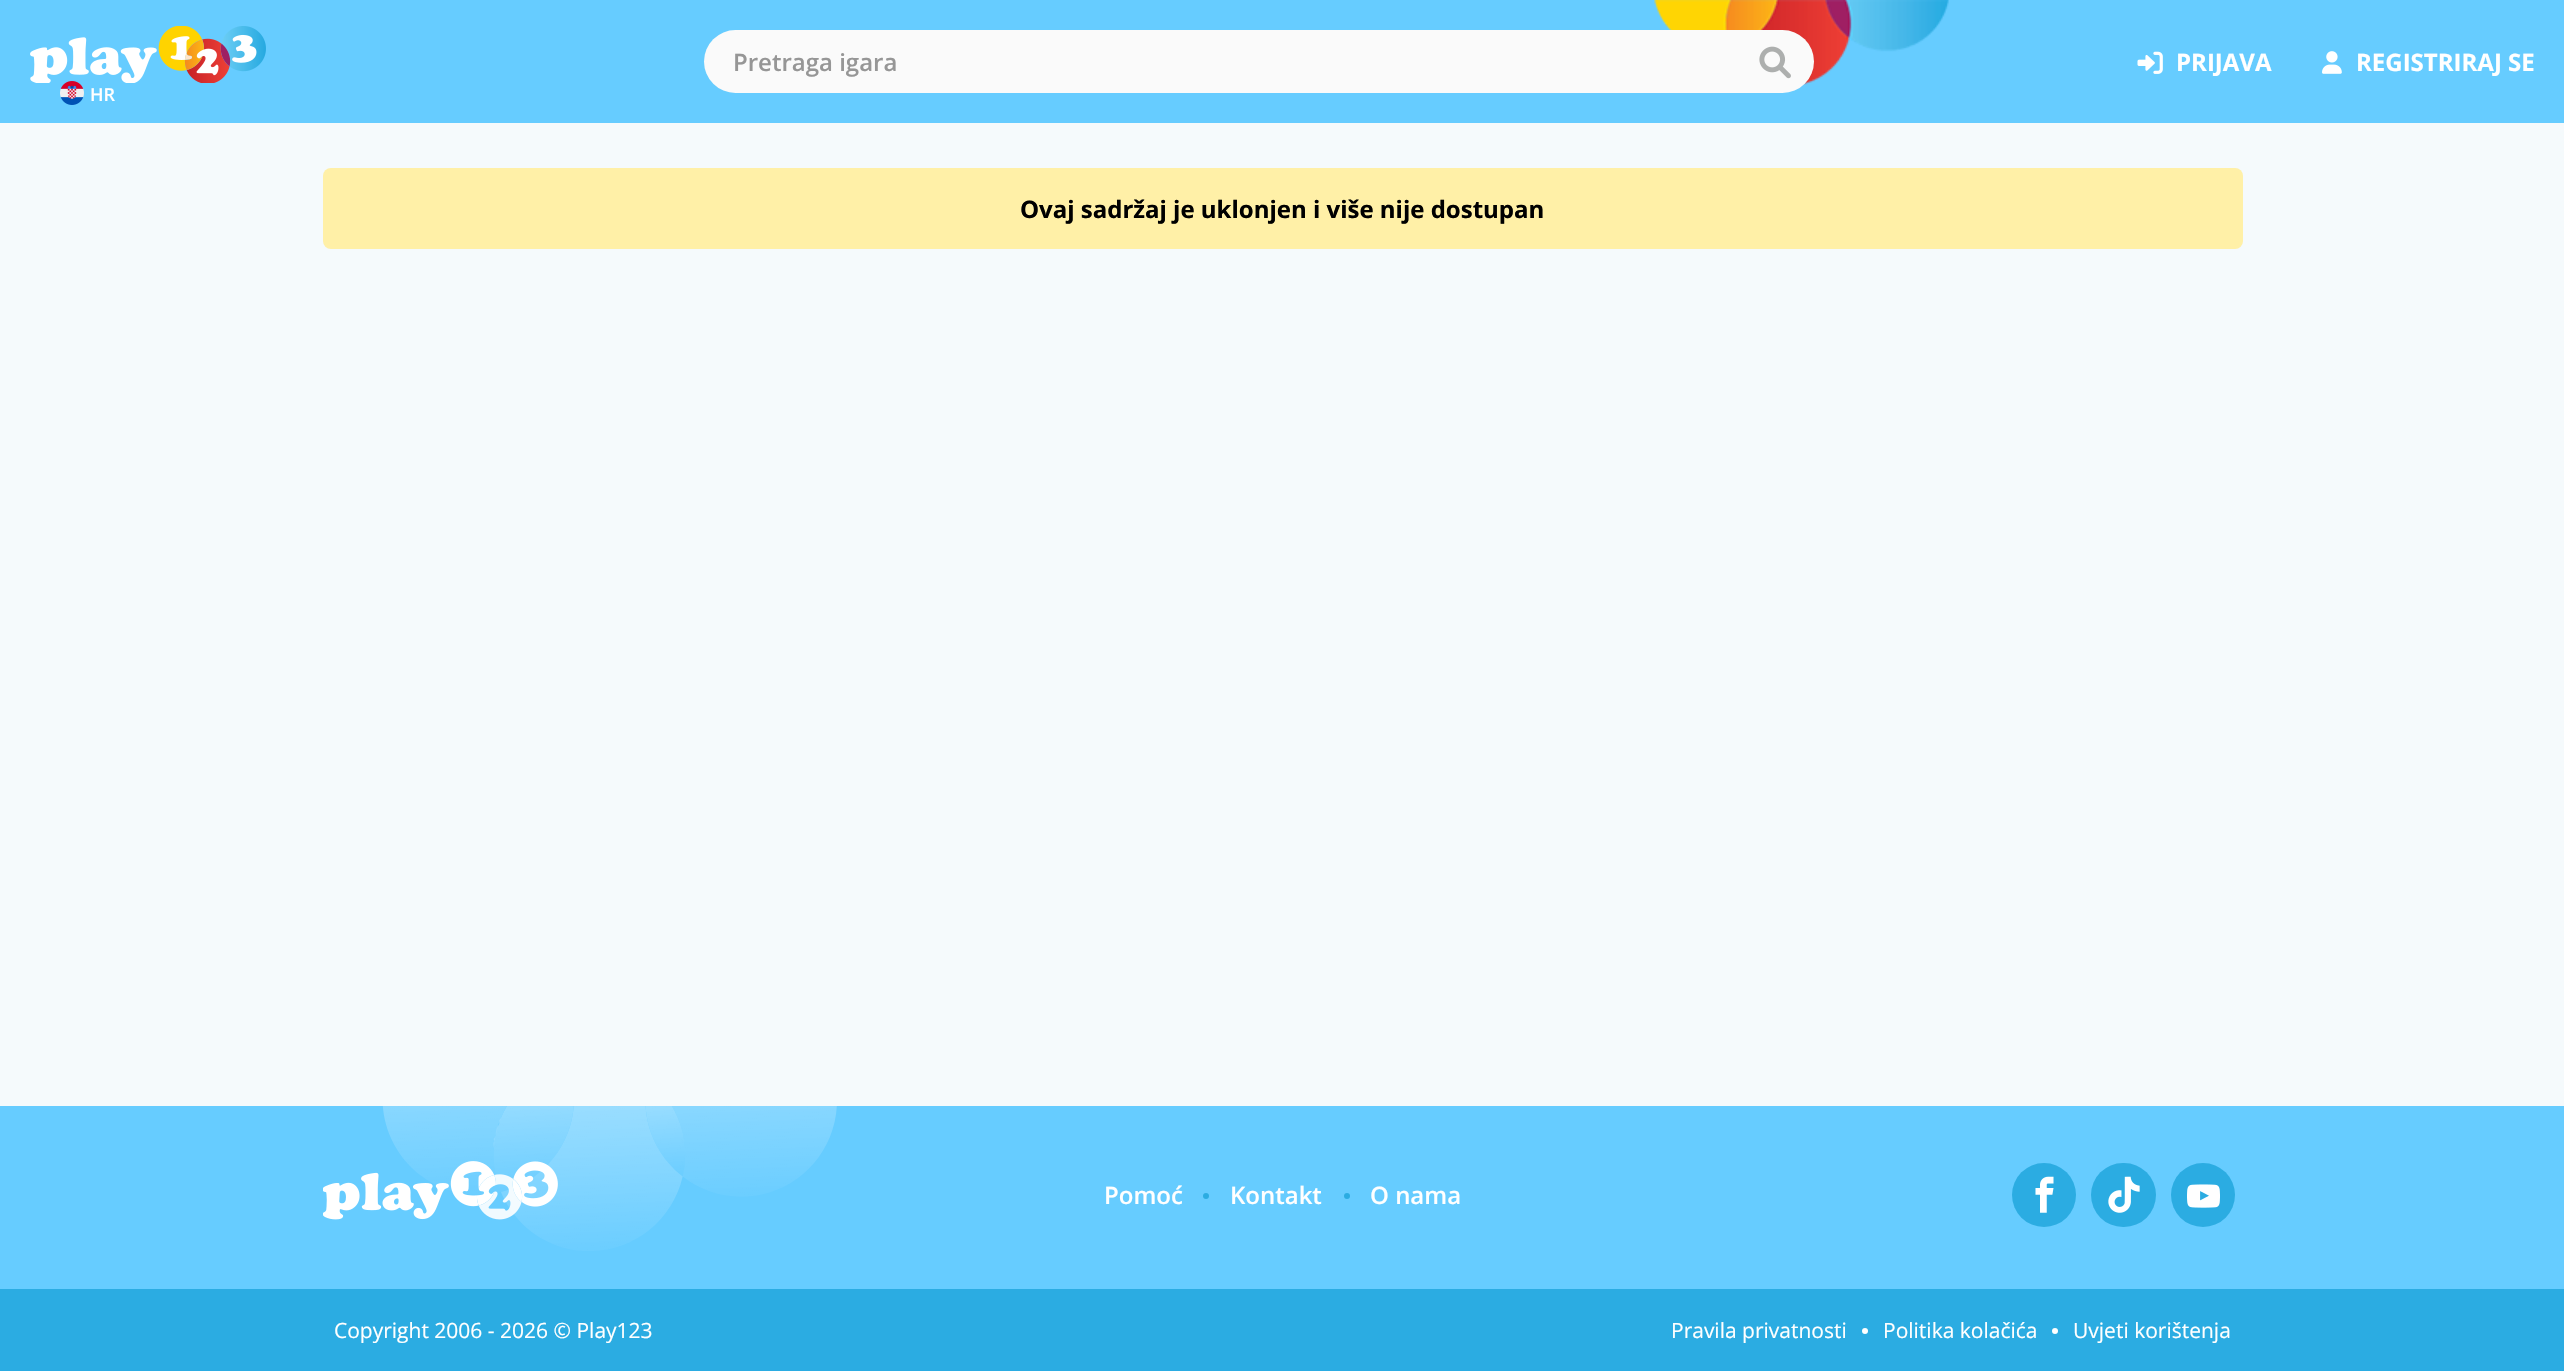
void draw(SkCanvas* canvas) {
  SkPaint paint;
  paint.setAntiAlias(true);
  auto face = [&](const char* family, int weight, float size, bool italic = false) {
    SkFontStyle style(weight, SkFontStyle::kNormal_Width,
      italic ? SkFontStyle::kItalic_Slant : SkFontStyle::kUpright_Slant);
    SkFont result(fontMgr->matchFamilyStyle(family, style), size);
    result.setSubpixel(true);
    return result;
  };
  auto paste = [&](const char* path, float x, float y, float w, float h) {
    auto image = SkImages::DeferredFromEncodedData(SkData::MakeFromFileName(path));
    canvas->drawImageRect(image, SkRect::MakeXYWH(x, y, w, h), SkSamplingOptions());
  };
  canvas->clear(0xfff5fafc);
  paint.setColor(0xff66ccff);
  canvas->drawRect(SkRect::MakeXYWH(0, 0, 2564, 123), paint);
  paste("img/1.png", 1654, 0, 295, 86);
  paint.setColor(0xfffafafa);
  canvas->drawRoundRect(SkRect::MakeXYWH(704, 30, 1110, 63), 31.5f, 31.5f, paint);
  paste("img/2.png", 1759, 46, 32, 33);
  paste("img/3.png", 2137, 51, 26, 23);
  paste("img/4.png", 2322, 51, 20, 23);
  paste("img/5.png", 30, 26, 236, 57);
  paste("img/6.png", 60, 81, 24, 24);
  paint.setColor(0xfffff0a7);
  canvas->drawRoundRect(SkRect::MakeXYWH(323, 168, 1920, 81), 8, 8, paint);
  paint.setColor(0xff66ccff);
  canvas->drawRect(SkRect::MakeXYWH(0, 1106, 2564, 183), paint);
  paste("img/7.png", 382, 1106, 455, 145);
  paste("img/8.png", 323, 1161, 235, 59);
  paint.setColor(0xff2bace2);
  canvas->drawCircle(1206, 1196, 3, paint);
  canvas->drawCircle(1347, 1196, 3, paint);
  canvas->drawCircle(2044, 1195, 32, paint);
  paste("img/9.png", 2035, 1176, 19, 37);
  canvas->drawRoundRect(SkRect::MakeXYWH(2091, 1163, 65, 64), 32, 32, paint);
  paste("img/10.png", 2108, 1176, 32, 37);
  canvas->drawCircle(2203, 1195, 32, paint);
  paste("img/11.png", 2187, 1184, 33, 24);
  canvas->drawRect(SkRect::MakeXYWH(0, 1289, 2564, 82), paint);
  paint.setColor(0xffffffff);
  canvas->drawCircle(1865, 1331, 3, paint);
  canvas->drawCircle(2055, 1331, 3, paint);
  auto f0 = face("Open Sans", 600, 24);
  paint.setColor(0xff969696);
  canvas->drawString("Pretraga igara", 733, 71, f0, paint);
  auto f1 = face("Open Sans", 700, 24);
  paint.setColor(0xffffffff);
  canvas->drawString("PRIJAVA", 2176, 71, f1, paint);
  canvas->drawString("REGISTRIRAJ SE", 2356, 71, f1, paint);
  auto f2 = face("Open Sans", 600, 18);
  canvas->drawString("HR", 90, 101, f2, paint);
  paint.setColor(0xff000000);
  canvas->drawString("Ovaj sadržaj je uklonjen i više nije dostupan", 1020, 218, f1, paint);
  paint.setColor(0xffffffff);
  {
    const struct { const char* s; float x, y; } items[] = {
      {"Pomoć", 1104, 1204},
      {"Kontakt", 1230, 1204},
      {"O nama", 1370, 1204},
    };
    for (auto [s, x, y] : items) {
      canvas->drawString(s, x, y, f0, paint);
    }
  }
  auto f3 = face("Open Sans", 400, 21);
  {
    const struct { const char* s; float x, y; } items[] = {
      {"Copyright 2006 - 2026 © Play123", 334, 1338},
      {"Pravila privatnosti", 1671, 1338},
      {"Politika kolačića", 1883, 1338},
      {"Uvjeti korištenja", 2073, 1338},
    };
    for (auto [s, x, y] : items) {
      canvas->drawString(s, x, y, f3, paint);
    }
  }
}
